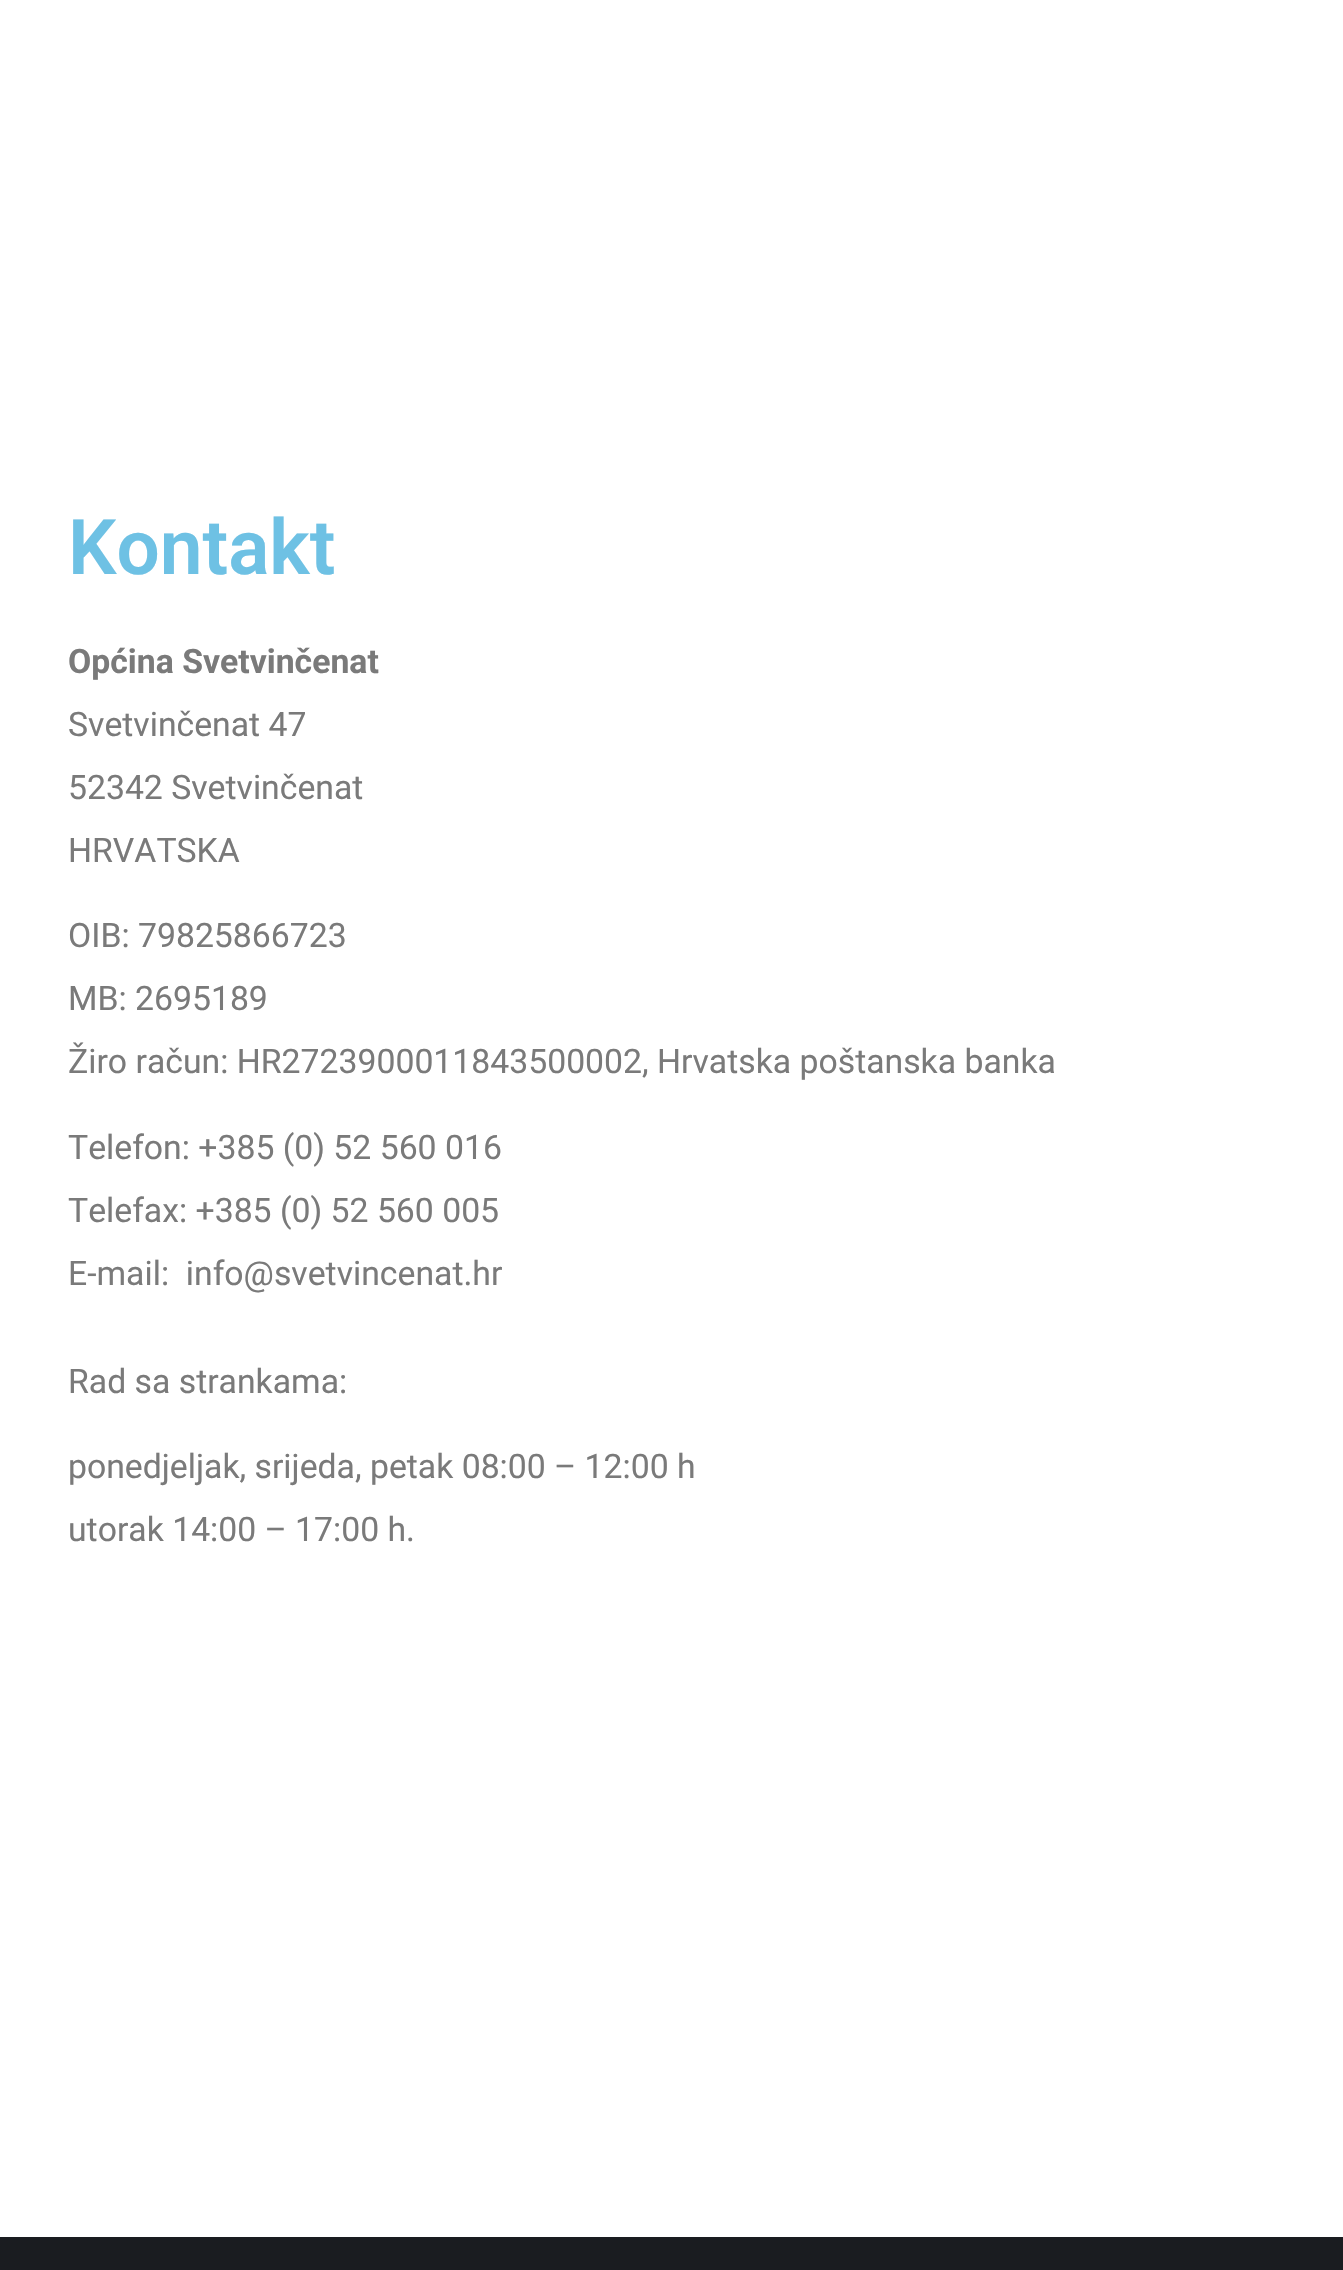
void draw(SkCanvas* canvas) {
  SkPaint paint;
  paint.setAntiAlias(true);
  auto face = [&](const char* family, int weight, float size, bool italic = false) {
    SkFontStyle style(weight, SkFontStyle::kNormal_Width,
      italic ? SkFontStyle::kItalic_Slant : SkFontStyle::kUpright_Slant);
    SkFont result(fontMgr->matchFamilyStyle(family, style), size);
    result.setSubpixel(true);
    return result;
  };
  canvas->clear(0xffffffff);
  paint.setColor(0xff1a1c20);
  canvas->drawRect(SkRect::MakeXYWH(0, 2237, 1343, 33), paint);
  auto f0 = face("Roboto", 600, 76.5f);
  paint.setColor(0xff6ec1e4);
  canvas->drawString("Kontakt", 68, 574, f0, paint);
  auto f1 = face("Roboto", 700, 33.75f);
  paint.setColor(0xff7a7a7a);
  canvas->drawString("Općina Svetvinčenat", 68, 673, f1, paint);
  auto f2 = face("Roboto", 400, 33.75f);
  {
    const struct { const char* s; float x, y; } items[] = {
      {"Svetvinčenat 47", 68, 736},
      {"52342 Svetvinčenat", 68, 799},
      {"HRVATSKA", 68, 862},
      {"OIB: 79825866723", 68, 947},
      {"MB: 2695189", 68, 1010},
      {"Žiro račun: HR2723900011843500002, Hrvatska poštanska banka", 68, 1073},
      {"Telefon: +385 (0) 52 560 016", 68, 1159},
      {"Telefax: +385 (0) 52 560 005", 68, 1222},
      {"E-mail:  info@svetvincenat.hr", 68, 1285},
      {"Rad sa strankama:", 68, 1393},
      {"ponedjeljak, srijeda, petak 08:00 – 12:00 h", 68, 1478},
      {"utorak 14:00 – 17:00 h.", 68, 1541},
    };
    for (auto [s, x, y] : items) {
      canvas->drawString(s, x, y, f2, paint);
    }
  }
}
